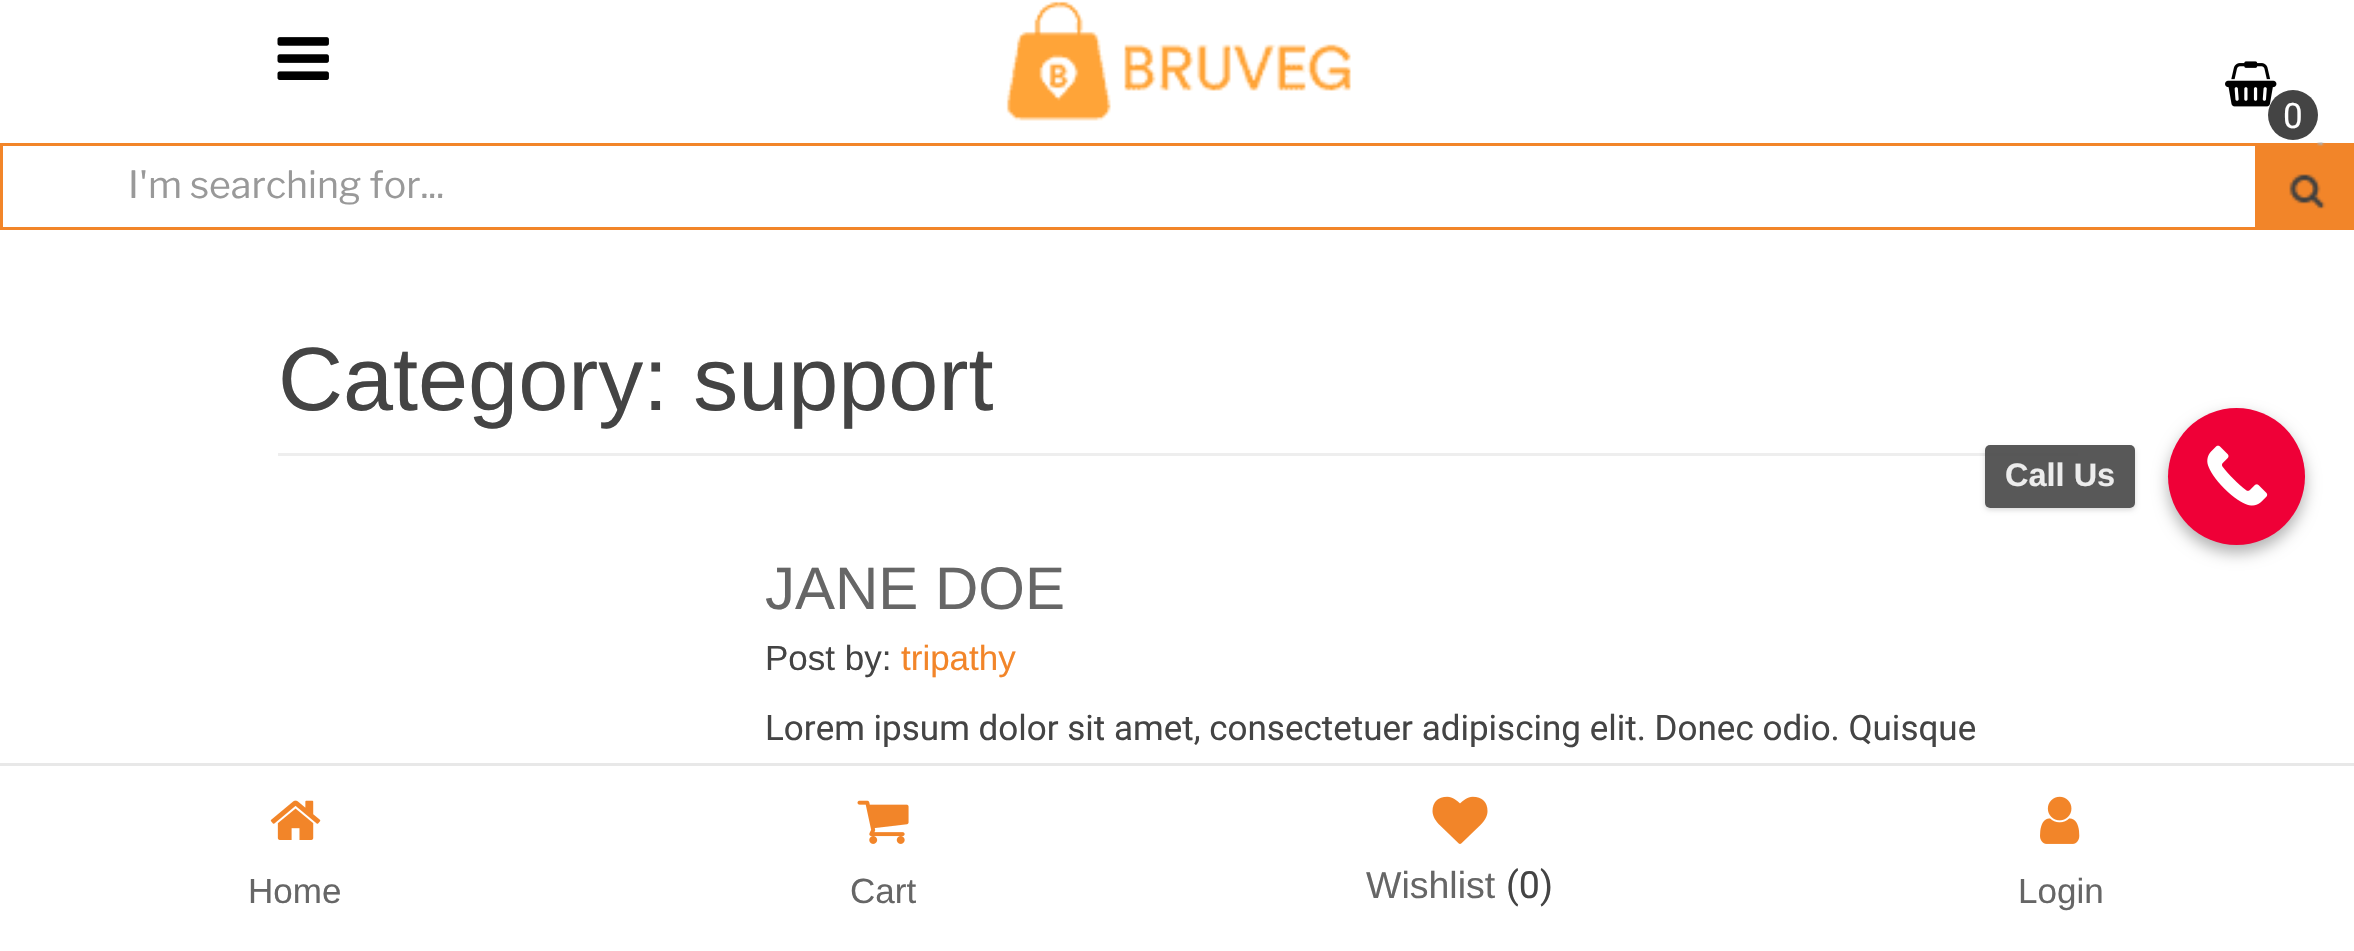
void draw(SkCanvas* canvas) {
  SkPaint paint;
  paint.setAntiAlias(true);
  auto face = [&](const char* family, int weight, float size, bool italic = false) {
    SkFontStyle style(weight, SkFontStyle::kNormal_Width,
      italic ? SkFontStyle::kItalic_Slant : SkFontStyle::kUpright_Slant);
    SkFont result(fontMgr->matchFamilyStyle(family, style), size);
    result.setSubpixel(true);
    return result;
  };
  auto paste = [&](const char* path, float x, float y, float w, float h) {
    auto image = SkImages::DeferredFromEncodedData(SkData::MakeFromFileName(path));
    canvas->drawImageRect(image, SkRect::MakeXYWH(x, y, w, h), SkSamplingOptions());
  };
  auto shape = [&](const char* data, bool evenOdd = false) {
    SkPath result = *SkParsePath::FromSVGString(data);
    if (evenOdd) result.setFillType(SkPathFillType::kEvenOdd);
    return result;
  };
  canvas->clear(0xffffffff);
  paste("img/1.png", 277, 37, 52, 43);
  paste("img/2.png", 2225, 61, 52, 46);
  paint.setColor(0xff444444);
  canvas->drawCircle(2293, 115, 25, paint);
  paste("img/3.png", 1006, 1, 345, 120);
  paint.setStroke(true);
  paint.setStrokeWidth(3);
  paint.setColor(0xfff28529);
  canvas->drawRect(SkRect::MakeXYWH(1.5f, 144.5f, 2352, 84), paint);
  paint.setStroke(false);
  canvas->drawRect(SkRect::MakeXYWH(2255, 146, 97, 81), paint);
  paste("img/4.png", 2289, 142, 37, 67);
  paint.setColor(0xffeeeeee);
  canvas->drawRect(SkRect::MakeXYWH(278, 453, 1800, 3), paint);
  paint.setColor(0x4d000000);
  paint.setMaskFilter(SkMaskFilter::MakeBlur(kNormal_SkBlurStyle, 7.5f));
  canvas->drawRoundRect(SkRect::MakeXYWH(2168, 415, 137, 138), 68.5f, 68.5f, paint);
  paint.setMaskFilter(nullptr);
  paint.setColor(0xffef0037);
  canvas->drawCircle(2236.5f, 476.5f, 68.5f, paint);
  paste("img/5.png", 2207, 445, 61, 61);
  canvas->save();
  canvas->clipPath(shape("M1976 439H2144V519H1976ZM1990 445H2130C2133 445 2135 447 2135 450V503C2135 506 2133 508 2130 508H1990C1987 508 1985 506 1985 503V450C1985 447 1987 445 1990 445Z", true), true);
  paint.setColor(0x26000000);
  paint.setMaskFilter(SkMaskFilter::MakeBlur(kNormal_SkBlurStyle, 2.5f));
  canvas->drawRoundRect(SkRect::MakeXYWH(1985, 448, 150, 62), 5, 5, paint);
  paint.setMaskFilter(nullptr);
  canvas->restore();
  paint.setColor(0xe6464646);
  canvas->drawRoundRect(SkRect::MakeXYWH(1985, 445, 150, 63), 5, 5, paint);
  paint.setColor(0xffe8e8e8);
  canvas->drawRect(SkRect::MakeXYWH(0, 763, 2354, 3), paint);
  paste("img/6.png", 270, 800, 51, 40);
  paste("img/7.png", 857, 800, 52, 44);
  paste("img/8.png", 1432, 796, 56, 48);
  paste("img/9.png", 2040, 796, 40, 48);
  auto f0 = face("Roboto", 400, 35);
  paint.setColor(0xffffffff);
  canvas->drawString("0", 2283, 128, f0, paint);
  auto f1 = face("Libre Franklin", 400, 37.5f);
  paint.setColor(0xff999999);
  canvas->drawString("I'm searching for...", 128, 198, f1, paint);
  auto f2 = face("Liberation Sans", 400, 90);
  paint.setColor(0xff444444);
  canvas->drawString("Category: support", 278, 410, f2, paint);
  auto f3 = face("Liberation Sans", 400, 60);
  paint.setColor(0xff666666);
  canvas->drawString("JANE DOE", 765, 609, f3, paint);
  auto f4 = face("Liberation Sans", 400, 35);
  paint.setColor(0xff444444);
  canvas->drawString("Post by:", 765, 670, f4, paint);
  paint.setColor(0xfff28529);
  canvas->drawString("tripathy", 901, 670, f4, paint);
  paint.setColor(0xff444444);
  canvas->drawString("Lorem ipsum dolor sit amet, consectetuer adipiscing elit. Donec odio. Quisque", 765, 740, f0, paint);
  auto f5 = face("Liberation Sans", 700, 32.5f);
  paint.setColor(0xffececec);
  canvas->drawString("Call Us", 2005, 486, f5, paint);
  paint.setColor(0xff666666);
  canvas->drawString("Home", 248, 903, f4, paint);
  canvas->drawString("Cart", 850, 903, f4, paint);
  auto f6 = face("Liberation Sans", 400, 37.5f);
  canvas->drawString("Wishlist", 1366, 898, f6, paint);
  auto f7 = face("Roboto", 400, 37.5f);
  paint.setColor(0xff444444);
  canvas->drawString("(0)", 1506, 898, f7, paint);
  paint.setColor(0xff666666);
  canvas->drawString("Login", 2018, 903, f4, paint);
}
